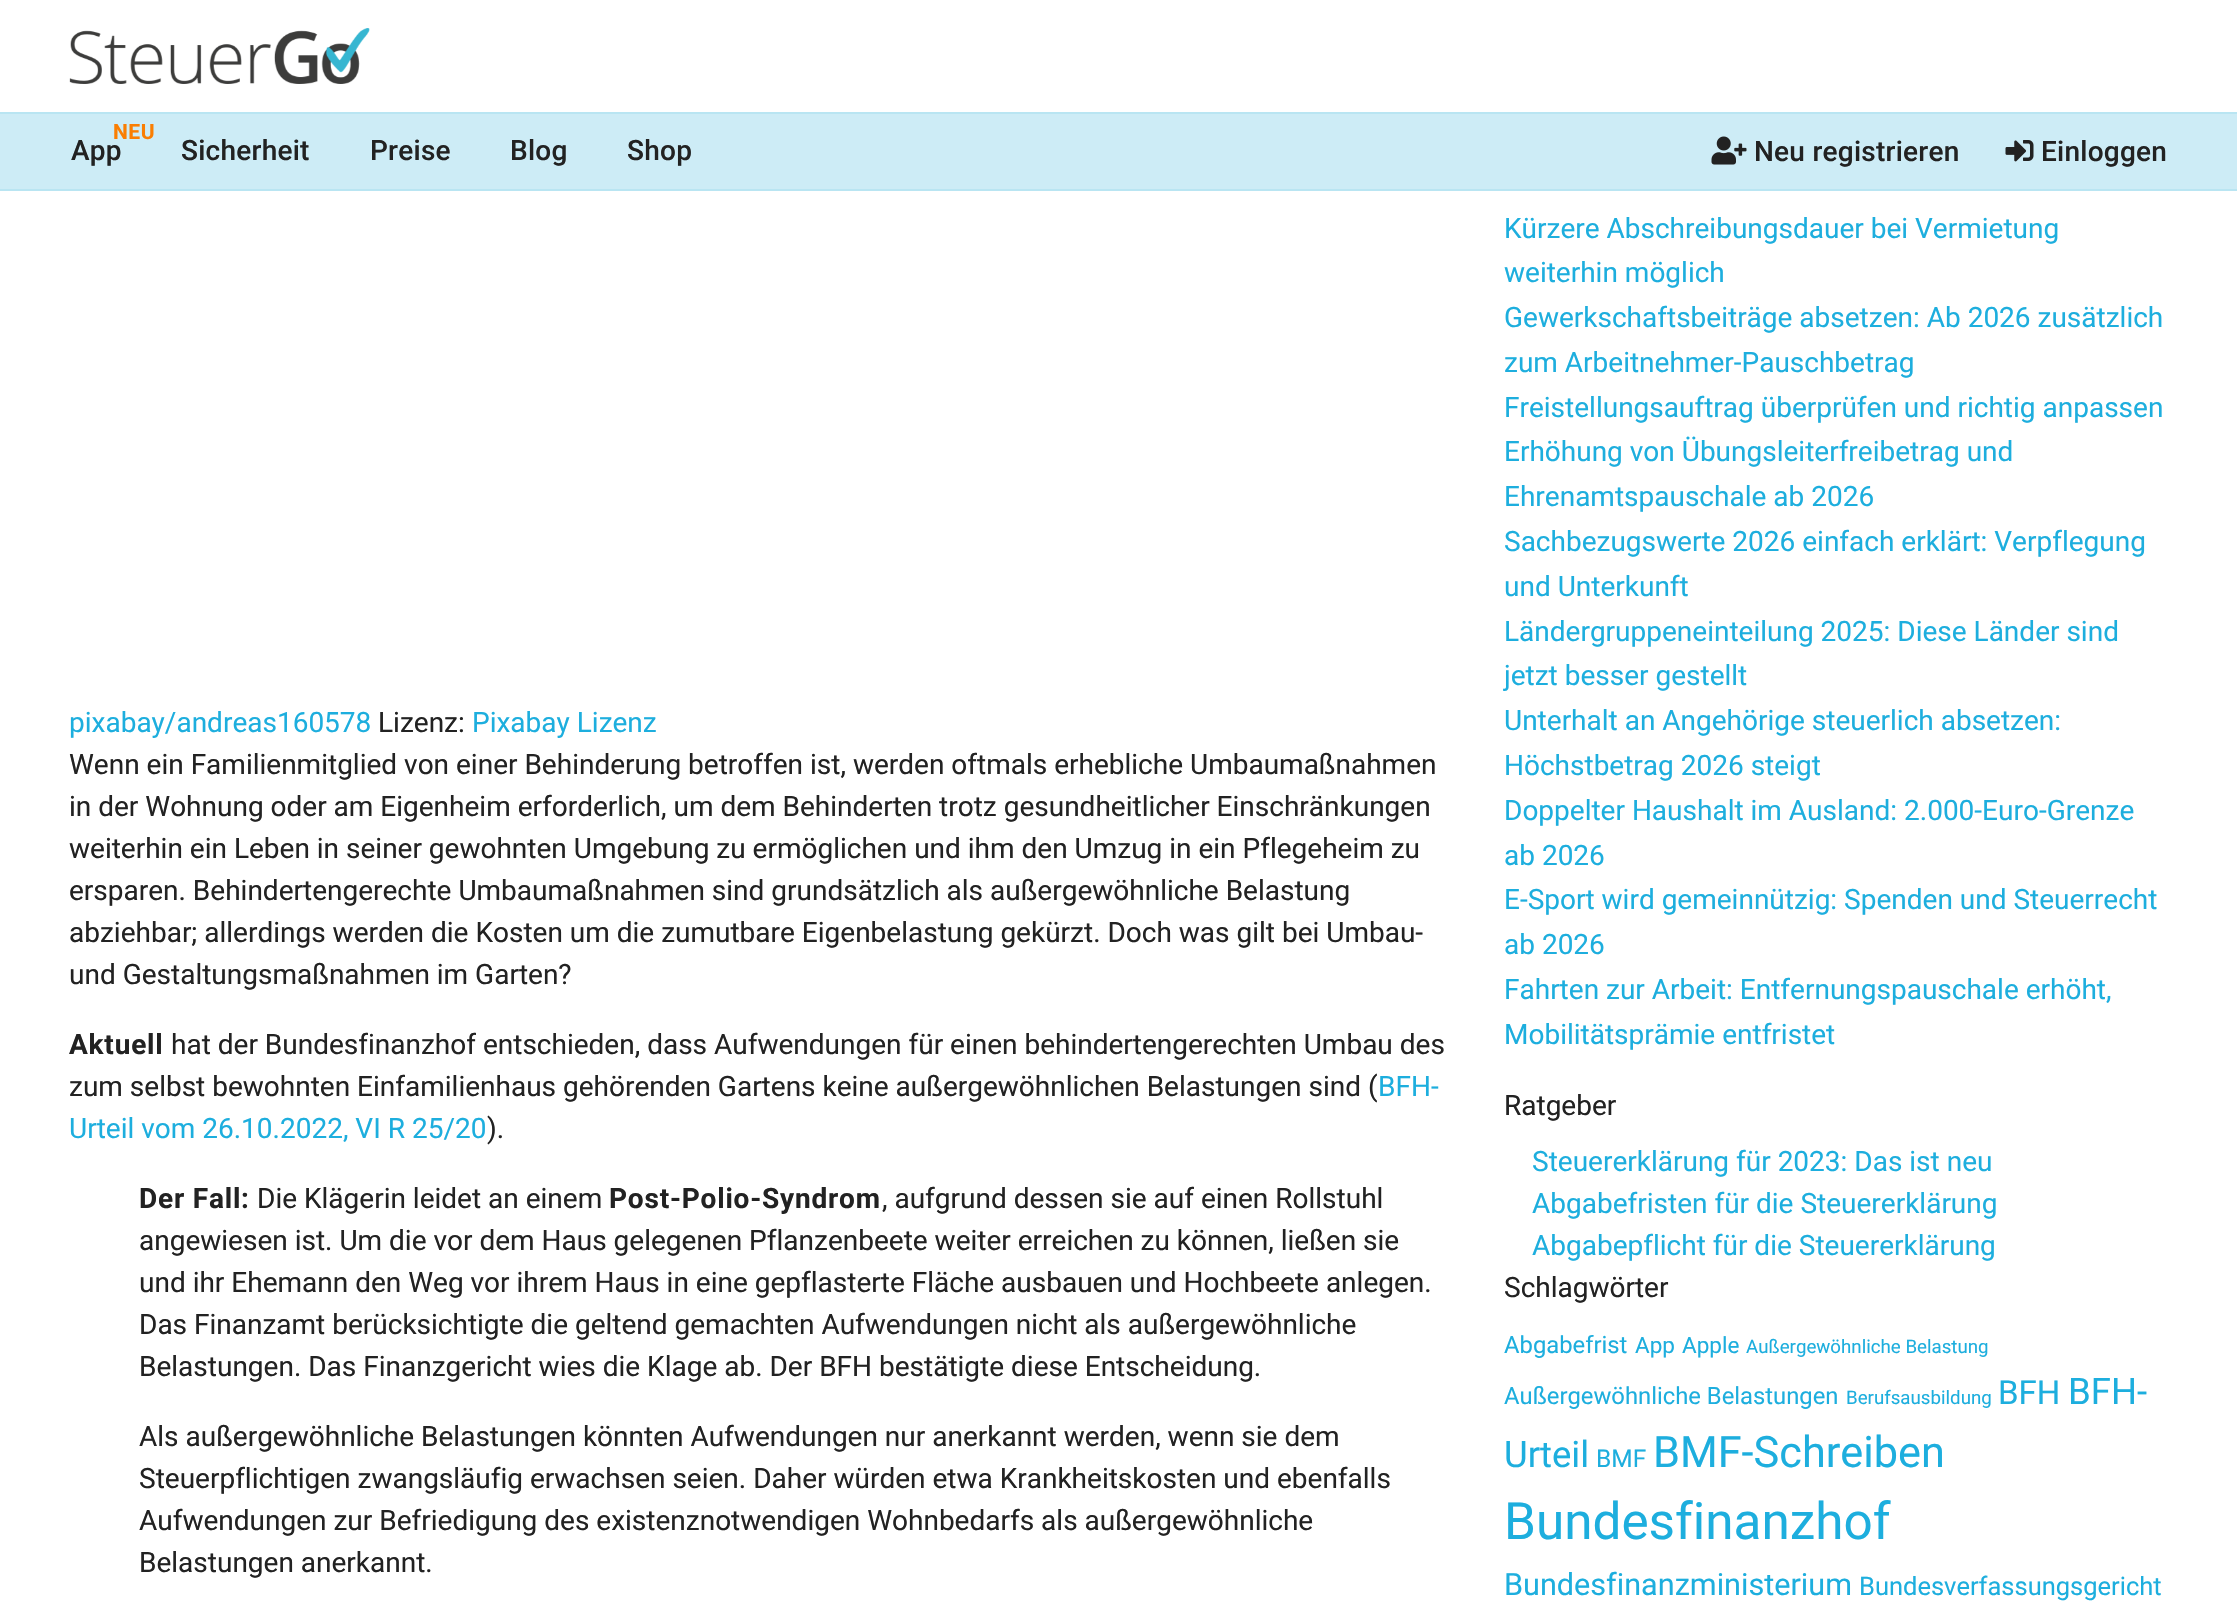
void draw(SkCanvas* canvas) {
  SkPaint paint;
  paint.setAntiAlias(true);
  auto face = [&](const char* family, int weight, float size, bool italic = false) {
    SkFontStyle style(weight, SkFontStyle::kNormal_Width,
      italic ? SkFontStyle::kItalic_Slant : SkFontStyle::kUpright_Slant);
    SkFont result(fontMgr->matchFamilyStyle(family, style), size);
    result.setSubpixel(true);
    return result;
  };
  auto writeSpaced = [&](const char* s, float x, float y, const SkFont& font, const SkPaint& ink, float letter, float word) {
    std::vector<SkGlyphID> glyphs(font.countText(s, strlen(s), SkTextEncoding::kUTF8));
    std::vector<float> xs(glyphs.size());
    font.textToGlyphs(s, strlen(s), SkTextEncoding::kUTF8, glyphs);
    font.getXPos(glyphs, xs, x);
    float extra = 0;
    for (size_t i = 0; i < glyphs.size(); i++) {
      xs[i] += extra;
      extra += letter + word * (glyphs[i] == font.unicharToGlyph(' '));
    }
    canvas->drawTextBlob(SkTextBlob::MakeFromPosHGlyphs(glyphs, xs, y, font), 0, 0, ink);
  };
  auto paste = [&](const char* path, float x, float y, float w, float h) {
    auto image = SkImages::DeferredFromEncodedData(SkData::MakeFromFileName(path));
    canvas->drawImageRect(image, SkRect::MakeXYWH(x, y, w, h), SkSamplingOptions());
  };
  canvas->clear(0xffffffff);
  paste("img/1.png", 69, 28, 301, 56);
  {
    const struct { float x, y, w, h; SkColor color; } items[] = {
      {0, 114, 2237, 75, 0xffcdecf6},
      {0, 112, 2237, 2, 0xffb9e5f2},
      {0, 189, 2237, 2, 0xffb9e5f2},
    };
    for (auto [x, y, w, h, color] : items) {
      paint.setColor(color);
      canvas->drawRect(SkRect::MakeXYWH(x, y, w, h), paint);
    }
  }
  paste("img/2.png", 1711, 136, 36, 29);
  paste("img/3.png", 2005, 140, 29, 22);
  auto f0 = face("Roboto", 700, 21);
  paint.setColor(0xfffa7e02);
  writeSpaced("NEU", 113, 139, f0, paint, 0.5f, 0);
  auto f1 = face("Roboto", 500, 28);
  paint.setColor(0xff222222);
  {
    const struct { const char* s; float x, y; } items[] = {
      {"App", 71, 160},
      {"Sicherheit", 181, 160},
      {"Preise", 370, 160},
      {"Blog", 510, 160},
      {"Shop", 627, 160},
      {"Neu registrieren", 1754, 161},
      {"Einloggen", 2041, 161},
    };
    for (auto [s, x, y] : items) {
      writeSpaced(s, x, y, f1, paint, 0.25f, 0);
    }
  }
  auto f2 = face("Roboto", 400, 28);
  paint.setColor(0xff1daede);
  canvas->drawString("pixabay/andreas160578", 69, 732, f2, paint);
  paint.setColor(0xff222222);
  canvas->drawString("Lizenz:", 378, 732, f2, paint);
  paint.setColor(0xff1daede);
  canvas->drawString("Pixabay Lizenz", 472, 732, f2, paint);
  paint.setColor(0xff222222);
  {
    const struct { const char* s; float x, y; } items[] = {
      {"Wenn ein Familienmitglied von einer Behinderung betroffen ist, werden oftmals erhebliche Umbaumaßnahmen", 69, 774},
      {"in der Wohnung oder am Eigenheim erforderlich, um dem Behinderten trotz gesundheitlicher Einschränkungen", 69, 816},
      {"weiterhin ein Leben in seiner gewohnten Umgebung zu ermöglichen und ihm den Umzug in ein Pflegeheim zu", 69, 858},
      {"ersparen. Behindertengerechte Umbaumaßnahmen sind grundsätzlich als außergewöhnliche Belastung", 69, 900},
      {"abziehbar; allerdings werden die Kosten um die zumutbare Eigenbelastung gekürzt. Doch was gilt bei Umbau-", 69, 942},
      {"und Gestaltungsmaßnahmen im Garten?", 69, 984},
    };
    for (auto [s, x, y] : items) {
      canvas->drawString(s, x, y, f2, paint);
    }
  }
  auto f3 = face("Roboto", 700, 28);
  writeSpaced("Aktuell", 69, 1054, f3, paint, 0.8f, 0);
  canvas->drawString("hat der Bundesfinanzhof entschieden, dass Aufwendungen für einen behindertengerechten Umbau des", 171, 1054, f2, paint);
  canvas->drawString("zum selbst bewohnten Einfamilienhaus gehörenden Gartens keine außergewöhnlichen Belastungen sind (", 69, 1096, f2, paint);
  paint.setColor(0xff1daede);
  canvas->drawString("BFH-", 1378, 1096, f2, paint);
  canvas->drawString("Urteil vom 26.10.2022, VI R 25/20", 69, 1138, f2, paint);
  paint.setColor(0xff222222);
  canvas->drawString(").", 487, 1138, f2, paint);
  writeSpaced("Der Fall:", 139, 1208, f3, paint, 0.8f, 0);
  canvas->drawString("Die Klägerin leidet an einem", 257, 1208, f2, paint);
  writeSpaced("Post-Polio-Syndrom", 609, 1208, f3, paint, 0.8f, 0);
  {
    const struct { const char* s; float x, y; } items[] = {
      {", aufgrund dessen sie auf einen Rollstuhl", 882, 1208},
      {"angewiesen ist. Um die vor dem Haus gelegenen Pflanzenbeete weiter erreichen zu können, ließen sie", 139, 1250},
      {"und ihr Ehemann den Weg vor ihrem Haus in eine gepflasterte Fläche ausbauen und Hochbeete anlegen.", 139, 1292},
      {"Das Finanzamt berücksichtigte die geltend gemachten Aufwendungen nicht als außergewöhnliche", 139, 1334},
      {"Belastungen. Das Finanzgericht wies die Klage ab. Der BFH bestätigte diese Entscheidung.", 139, 1376},
      {"Als außergewöhnliche Belastungen könnten Aufwendungen nur anerkannt werden, wenn sie dem", 139, 1446},
      {"Steuerpflichtigen zwangsläufig erwachsen seien. Daher würden etwa Krankheitskosten und ebenfalls", 139, 1488},
      {"Aufwendungen zur Befriedigung des existenznotwendigen Wohnbedarfs als außergewöhnliche", 139, 1530},
      {"Belastungen anerkannt.", 139, 1572},
    };
    for (auto [s, x, y] : items) {
      canvas->drawString(s, x, y, f2, paint);
    }
  }
  paint.setColor(0xff1daede);
  {
    const struct { const char* s; float x, y; } items[] = {
      {"Kürzere Abschreibungsdauer bei Vermietung", 1504, 238},
      {"weiterhin möglich", 1504, 282},
      {"Gewerkschaftsbeiträge absetzen: Ab 2026 zusätzlich", 1504, 327},
      {"zum Arbeitnehmer-Pauschbetrag", 1504, 372},
      {"Freistellungsauftrag überprüfen und richtig anpassen", 1504, 417},
      {"Erhöhung von Übungsleiterfreibetrag und", 1504, 461},
      {"Ehrenamtspauschale ab 2026", 1504, 506},
      {"Sachbezugswerte 2026 einfach erklärt: Verpflegung", 1504, 551},
      {"und Unterkunft", 1504, 596},
      {"Ländergruppeneinteilung 2025: Diese Länder sind", 1504, 641},
      {"jetzt besser gestellt", 1504, 685},
      {"Unterhalt an Angehörige steuerlich absetzen:", 1504, 730},
      {"Höchstbetrag 2026 steigt", 1504, 775},
      {"Doppelter Haushalt im Ausland: 2.000-Euro-Grenze", 1504, 820},
      {"ab 2026", 1504, 865},
      {"E-Sport wird gemeinnützig: Spenden und Steuerrecht", 1504, 909},
      {"ab 2026", 1504, 954},
      {"Fahrten zur Arbeit: Entfernungspauschale erhöht,", 1504, 999},
      {"Mobilitätsprämie entfristet", 1504, 1044},
    };
    for (auto [s, x, y] : items) {
      canvas->drawString(s, x, y, f2, paint);
    }
  }
  paint.setColor(0xff222222);
  canvas->drawString("Ratgeber", 1504, 1115, f2, paint);
  paint.setColor(0xff1daede);
  {
    const struct { const char* s; float x, y; } items[] = {
      {"Steuererklärung für 2023: Das ist neu", 1532, 1171},
      {"Abgabefristen für die Steuererklärung", 1532, 1213},
      {"Abgabepflicht für die Steuererklärung", 1532, 1255},
    };
    for (auto [s, x, y] : items) {
      canvas->drawString(s, x, y, f2, paint);
    }
  }
  paint.setColor(0xff222222);
  canvas->drawString("Schlagwörter", 1504, 1297, f2, paint);
  auto f4 = face("Roboto", 400, 23.8f);
  paint.setColor(0xff1daede);
  canvas->drawString("Abgabefrist", 1504, 1353, f4, paint);
  auto f5 = face("Roboto", 400, 22.5f);
  canvas->drawString("App", 1635, 1353, f5, paint);
  canvas->drawString("Apple", 1682, 1353, f5, paint);
  auto f6 = face("Roboto", 400, 18.7f);
  canvas->drawString("Außergewöhnliche Belastung", 1746, 1353, f6, paint);
  canvas->drawString("Außergewöhnliche Belastungen", 1504, 1404, f4, paint);
  canvas->drawString("Berufsausbildung", 1846, 1404, f6, paint);
  auto f7 = face("Roboto", 400, 33);
  canvas->drawString("BFH", 1998, 1404, f7, paint);
  auto f8 = face("Roboto", 400, 36.5f);
  canvas->drawString("BFH-", 2068, 1404, f8, paint);
  canvas->drawString("Urteil", 1504, 1467, f8, paint);
  auto f9 = face("Roboto", 400, 24.5f);
  canvas->drawString("BMF", 1596, 1467, f9, paint);
  auto f10 = face("Roboto", 400, 43.25f);
  canvas->drawString("BMF-Schreiben", 1653, 1467, f10, paint);
  auto f11 = face("Roboto", 400, 51.25f);
  canvas->drawString("Bundesfinanzhof", 1504, 1539, f11, paint);
  auto f12 = face("Roboto", 400, 30.6f);
  canvas->drawString("Bundesfinanzministerium", 1504, 1595, f12, paint);
  auto f13 = face("Roboto", 400, 25.5f);
  canvas->drawString("Bundesverfassungsgericht", 1859, 1595, f13, paint);
}
